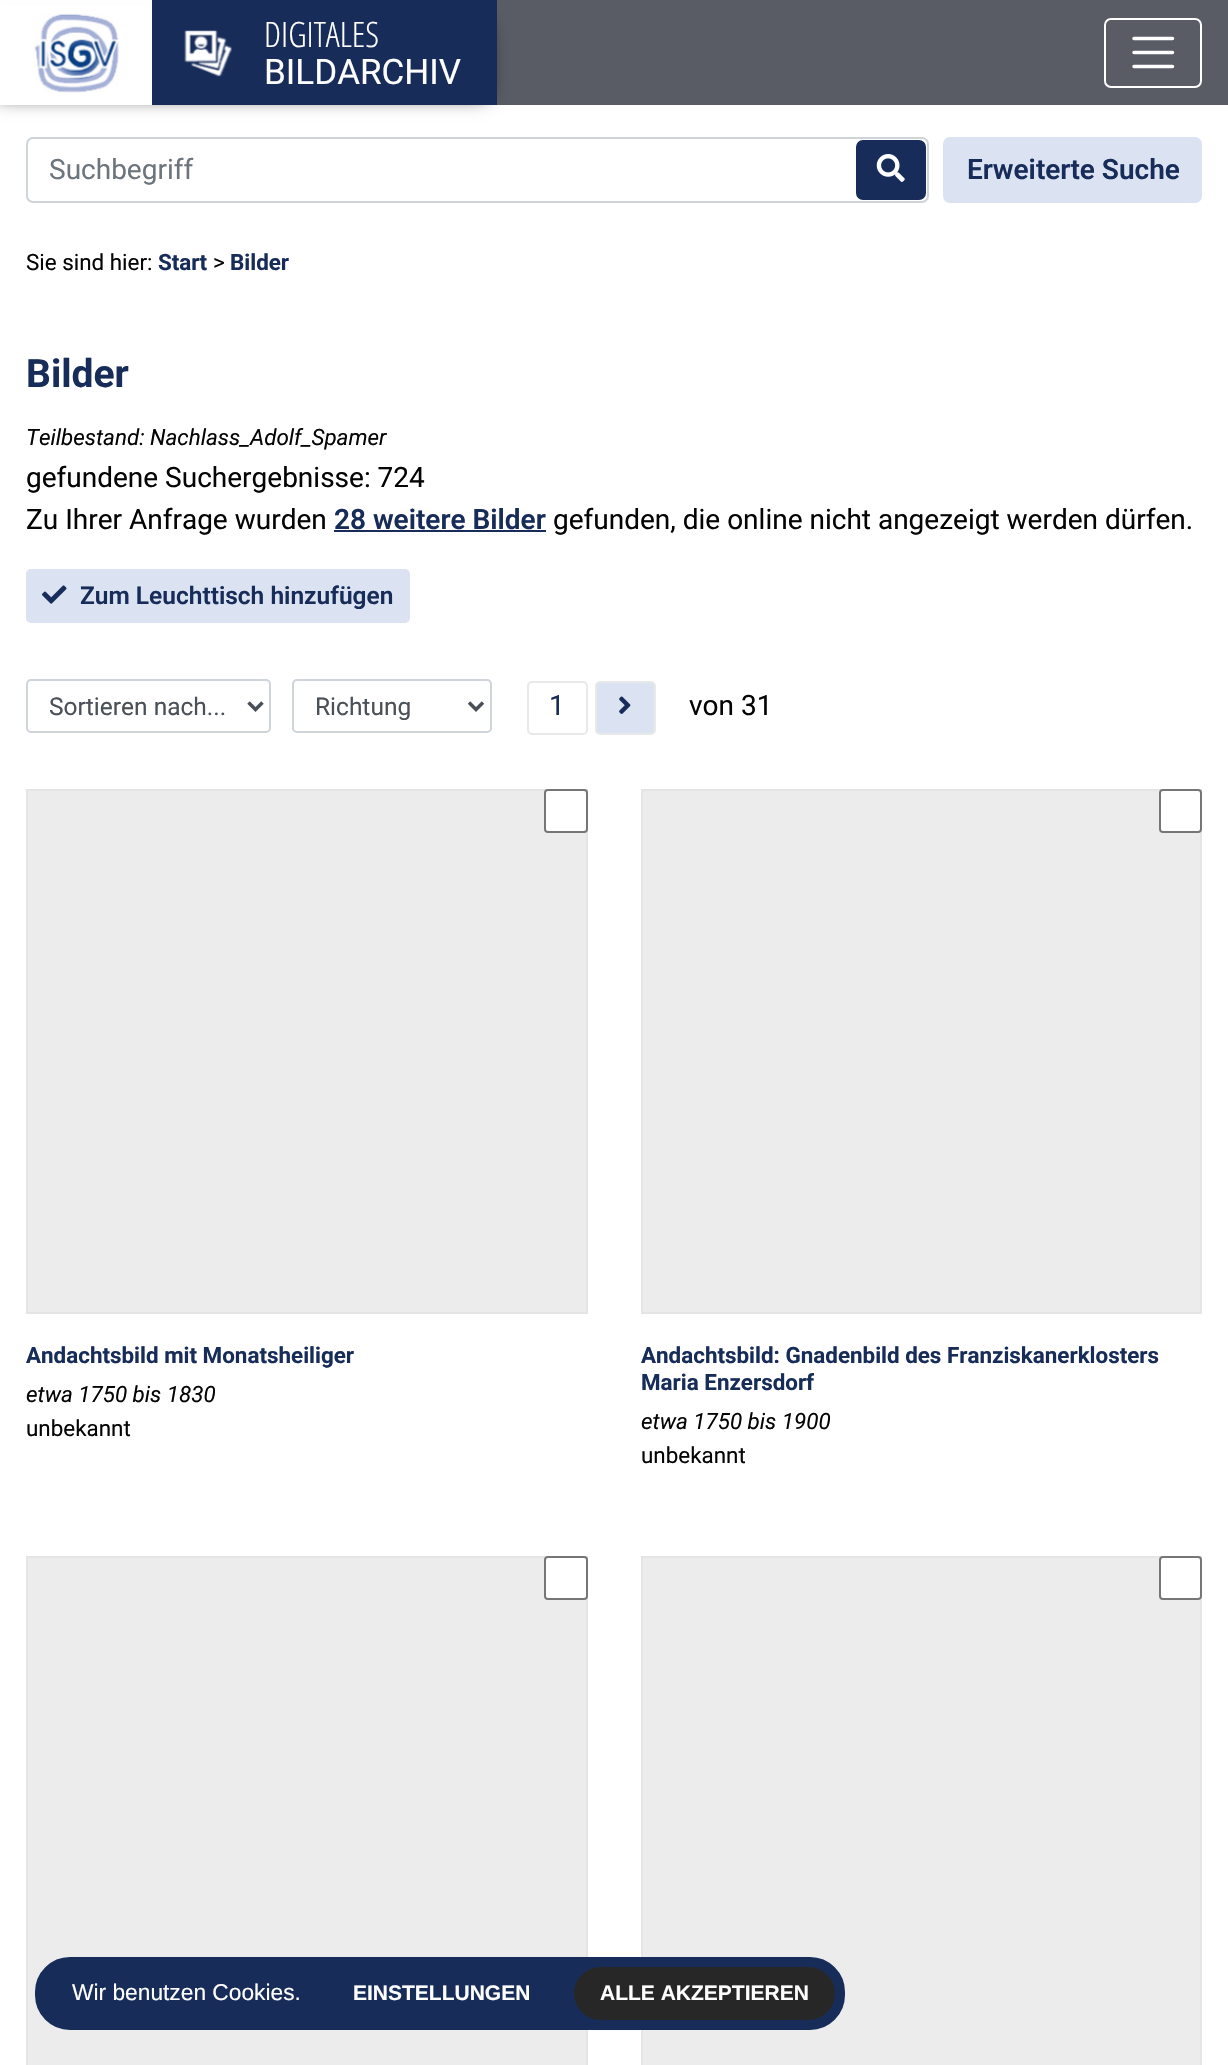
void draw(SkCanvas* canvas) {
  SkPaint paint;
  paint.setAntiAlias(true);
  auto face = [&](const char* family, int weight, float size, bool italic = false) {
    SkFontStyle style(weight, SkFontStyle::kNormal_Width,
      italic ? SkFontStyle::kItalic_Slant : SkFontStyle::kUpright_Slant);
    SkFont result(fontMgr->matchFamilyStyle(family, style), size);
    result.setSubpixel(true);
    return result;
  };
  auto paste = [&](const char* path, float x, float y, float w, float h) {
    auto image = SkImages::DeferredFromEncodedData(SkData::MakeFromFileName(path));
    canvas->drawImageRect(image, SkRect::MakeXYWH(x, y, w, h), SkSamplingOptions());
  };
  auto shape = [&](const char* data, bool evenOdd = false) {
    SkPath result = *SkParsePath::FromSVGString(data);
    if (evenOdd) result.setFillType(SkPathFillType::kEvenOdd);
    return result;
  };
  canvas->clear(0xffffffff);
  paint.setColor(0xff595c65);
  canvas->drawRect(SkRect::MakeXYWH(497, 0, 731, 105), paint);
  paint.setColor(0xff050505);
  paint.setMaskFilter(SkMaskFilter::MakeBlur(kNormal_SkBlurStyle, 9));
  canvas->drawRect(SkRect::MakeXYWH(-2, 26, 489, 70), paint);
  paint.setMaskFilter(nullptr);
  paint.setColor(0xffffffff);
  canvas->drawRect(SkRect::MakeXYWH(0, 5, 152, 100), paint);
  paste("img/1.png", 34, 13, 85, 80);
  paint.setColor(0xff172c59);
  canvas->drawRect(SkRect::MakeXYWH(152, 0, 345, 105), paint);
  paste("img/2.png", 184, 30, 48, 47);
  paint.setStroke(true);
  paint.setStrokeWidth(2);
  paint.setColor(0xffffffff);
  canvas->drawRoundRect(SkRect::MakeXYWH(1105, 19, 96, 68), 6, 6, paint);
  paint.setStrokeWidth(3.5f);
  paint.setStrokeCap(SkPaint::kRound_Cap);
  canvas->drawPath(shape("M1134 38.5H1172.5M1134 52.5H1172.5M1134 66.5H1172.5"), paint);
  paint.setStrokeWidth(2);
  paint.setStrokeCap(SkPaint::kButt_Cap);
  paint.setColor(0xffced4da);
  canvas->drawRoundRect(SkRect::MakeXYWH(27, 138, 901, 64), 6, 6, paint);
  paint.setStroke(false);
  paint.setColor(0xff172c59);
  canvas->drawRoundRect(SkRect::MakeXYWH(857, 141, 68, 58), 6, 6, paint);
  paint.setStroke(true);
  canvas->drawRoundRect(SkRect::MakeXYWH(857, 141, 68, 58), 6, 6, paint);
  paste("img/3.png", 876, 154, 29, 28);
  paint.setStroke(false);
  paint.setColor(0xffdbe2f2);
  canvas->drawRoundRect(SkRect::MakeXYWH(944, 138, 257, 64), 6, 6, paint);
  paint.setStroke(true);
  canvas->drawRoundRect(SkRect::MakeXYWH(944, 138, 257, 64), 6, 6, paint);
  paint.setStroke(false);
  paint.setColor(0xff172c59);
  canvas->drawRect(SkRect::MakeXYWH(334, 530, 212, 2), paint);
  paint.setColor(0xffdbe2f2);
  canvas->drawRoundRect(SkRect::MakeXYWH(27, 570, 382, 52), 4, 4, paint);
  paint.setStroke(true);
  canvas->drawRoundRect(SkRect::MakeXYWH(27, 570, 382, 52), 4, 4, paint);
  paste("img/4.png", 42, 585, 25, 19);
  paint.setColor(0xffced4da);
  canvas->drawRoundRect(SkRect::MakeXYWH(27, 680, 243, 52), 4, 4, paint);
  paint.setStrokeWidth(3.5f);
  paint.setColor(0xff495057);
  canvas->drawPath(shape("M248.5 702.5L255.5 709.5L262.5 702.5"), paint);
  paint.setStrokeWidth(2);
  paint.setColor(0xffced4da);
  canvas->drawRoundRect(SkRect::MakeXYWH(293, 680, 198, 52), 4, 4, paint);
  paint.setStrokeWidth(3.5f);
  paint.setColor(0xff495057);
  canvas->drawPath(shape("M469 702.5L476 709.5L483 702.5"), paint);
  paint.setStrokeWidth(2);
  paint.setColor(0xffe9e9e9);
  canvas->drawRoundRect(SkRect::MakeXYWH(528, 682, 59, 52), 4, 4, paint);
  paint.setStroke(false);
  paint.setColor(0xffdbe2f2);
  canvas->drawRoundRect(SkRect::MakeXYWH(596, 682, 59, 52), 4, 4, paint);
  paint.setStroke(true);
  paint.setColor(0xffe9e9e9);
  canvas->drawRoundRect(SkRect::MakeXYWH(596, 682, 59, 52), 4, 4, paint);
  paste("img/5.png", 619, 696, 12, 18);
  paint.setStroke(false);
  paint.setColor(0xffececec);
  canvas->drawRect(SkRect::MakeXYWH(27, 790, 560, 523), paint);
  paint.setStroke(true);
  paint.setColor(0xffe5e5e5);
  canvas->drawRect(SkRect::MakeXYWH(27, 790, 560, 523), paint);
  paint.setStroke(false);
  paint.setColor(0xffffffff);
  canvas->drawRoundRect(SkRect::MakeXYWH(545, 790, 42, 42), 3, 3, paint);
  paint.setStroke(true);
  paint.setColor(0xff767676);
  canvas->drawRoundRect(SkRect::MakeXYWH(545, 790, 42, 42), 3, 3, paint);
  paint.setStroke(false);
  paint.setColor(0xffececec);
  canvas->drawRect(SkRect::MakeXYWH(642, 790, 559, 523), paint);
  paint.setStroke(true);
  paint.setColor(0xffe5e5e5);
  canvas->drawRect(SkRect::MakeXYWH(642, 790, 559, 523), paint);
  paint.setStroke(false);
  paint.setColor(0xffffffff);
  canvas->drawRoundRect(SkRect::MakeXYWH(1160, 790, 41, 42), 3, 3, paint);
  paint.setStroke(true);
  paint.setColor(0xff767676);
  canvas->drawRoundRect(SkRect::MakeXYWH(1160, 790, 41, 42), 3, 3, paint);
  paint.setStroke(false);
  paint.setColor(0xffececec);
  canvas->drawRect(SkRect::MakeXYWH(27, 1557, 560, 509), paint);
  paint.setStroke(true);
  paint.setColor(0xffe5e5e5);
  canvas->drawRect(SkRect::MakeXYWH(27, 1557, 560, 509), paint);
  paint.setStroke(false);
  paint.setColor(0xffffffff);
  canvas->drawRoundRect(SkRect::MakeXYWH(545, 1557, 42, 42), 3, 3, paint);
  paint.setStroke(true);
  paint.setColor(0xff767676);
  canvas->drawRoundRect(SkRect::MakeXYWH(545, 1557, 42, 42), 3, 3, paint);
  paint.setStroke(false);
  paint.setColor(0xffececec);
  canvas->drawRect(SkRect::MakeXYWH(642, 1557, 559, 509), paint);
  paint.setStroke(true);
  paint.setColor(0xffe5e5e5);
  canvas->drawRect(SkRect::MakeXYWH(642, 1557, 559, 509), paint);
  paint.setStroke(false);
  paint.setColor(0xffffffff);
  canvas->drawRoundRect(SkRect::MakeXYWH(1160, 1557, 41, 42), 3, 3, paint);
  paint.setStroke(true);
  paint.setColor(0xff767676);
  canvas->drawRoundRect(SkRect::MakeXYWH(1160, 1557, 41, 42), 3, 3, paint);
  paint.setStroke(false);
  paint.setColor(0xff172c59);
  canvas->drawRoundRect(SkRect::MakeXYWH(36, 1958, 808, 71), 34, 34, paint);
  paint.setStroke(true);
  canvas->drawRoundRect(SkRect::MakeXYWH(36, 1958, 808, 71), 34, 34, paint);
  paint.setStroke(false);
  paint.setColor(0xff272727);
  canvas->drawRoundRect(SkRect::MakeXYWH(574, 1967, 261, 53), 26.5f, 26.5f, paint);
  auto f0 = face("Open Sans Condensed", 300, 35);
  paint.setColor(0xffffffff);
  canvas->drawString("DIGITALES", 264, 47, f0, paint);
  auto f1 = face("Roboto", 400, 35);
  canvas->drawString("BILDARCHIV", 264, 84, f1, paint);
  auto f2 = face("Roboto", 400, 28);
  paint.setColor(0xff6c757d);
  canvas->drawString("Suchbegriff", 49, 179, f2, paint);
  auto f3 = face("Roboto", 600, 28);
  paint.setColor(0xff172c59);
  canvas->drawString("Erweiterte Suche", 967, 179, f3, paint);
  auto f4 = face("Roboto", 400, 22.4f);
  paint.setColor(0xff050505);
  canvas->drawString("Sie sind hier:", 26, 270, f4, paint);
  auto f5 = face("Roboto", 700, 22.4f);
  paint.setColor(0xff172c59);
  canvas->drawString("Start", 158, 270, f5, paint);
  paint.setColor(0xff050505);
  canvas->drawString(">", 213, 270, f4, paint);
  paint.setColor(0xff172c59);
  canvas->drawString("Bilder", 230, 270, f5, paint);
  auto f6 = face("Roboto", 700, 39);
  canvas->drawString("Bilder", 26, 387, f6, paint);
  auto f7 = face("Roboto", 400, 22.4f, true);
  paint.setColor(0xff050505);
  canvas->drawString("Teilbestand: Nachlass_Adolf_Spamer", 26, 445, f7, paint);
  canvas->drawString("gefundene Suchergebnisse: 724", 26, 487, f2, paint);
  canvas->drawString("Zu Ihrer Anfrage wurden", 26, 529, f2, paint);
  paint.setColor(0xff172c59);
  canvas->drawString("28 weitere Bilder", 334, 529, f3, paint);
  paint.setColor(0xff050505);
  canvas->drawString("gefunden, die online nicht angezeigt werden dürfen.", 553, 529, f2, paint);
  auto f8 = face("Roboto", 600, 24.5f);
  paint.setColor(0xff172c59);
  canvas->drawString("Zum Leuchttisch hinzufügen", 80, 604, f8, paint);
  auto f9 = face("Roboto", 400, 24.5f);
  paint.setColor(0xff495057);
  canvas->drawString("Sortieren nach...", 49, 715, f9, paint);
  canvas->drawString("Richtung", 315, 715, f9, paint);
  paint.setColor(0xff172c59);
  canvas->drawString("1", 549, 715, f2, paint);
  paint.setColor(0xff050505);
  canvas->drawString("von 31", 689, 715, f2, paint);
  paint.setColor(0xff172c59);
  canvas->drawString("Andachtsbild mit Monatsheiliger", 26, 1363, f5, paint);
  paint.setColor(0xff050505);
  canvas->drawString("etwa 1750 bis 1830", 26, 1402, f7, paint);
  canvas->drawString("unbekannt", 26, 1436, f4, paint);
  paint.setColor(0xff172c59);
  canvas->drawString("Andachtsbild: Gnadenbild des Franziskanerklosters", 641, 1363, f5, paint);
  canvas->drawString("Maria Enzersdorf", 641, 1390, f5, paint);
  paint.setColor(0xff050505);
  canvas->drawString("etwa 1750 bis 1900", 641, 1429, f7, paint);
  canvas->drawString("unbekannt", 641, 1463, f4, paint);
  auto f10 = face("Liberation Sans", 400, 22.75f);
  paint.setColor(0xffffffff);
  canvas->drawString("Wir benutzen Cookies.", 72, 2000, f10, paint);
  auto f11 = face("Liberation Sans", 700, 21);
  canvas->drawString("EINSTELLUNGEN", 353, 2000, f11, paint);
  canvas->drawString("ALLE AKZEPTIEREN", 600, 2000, f11, paint);
}
